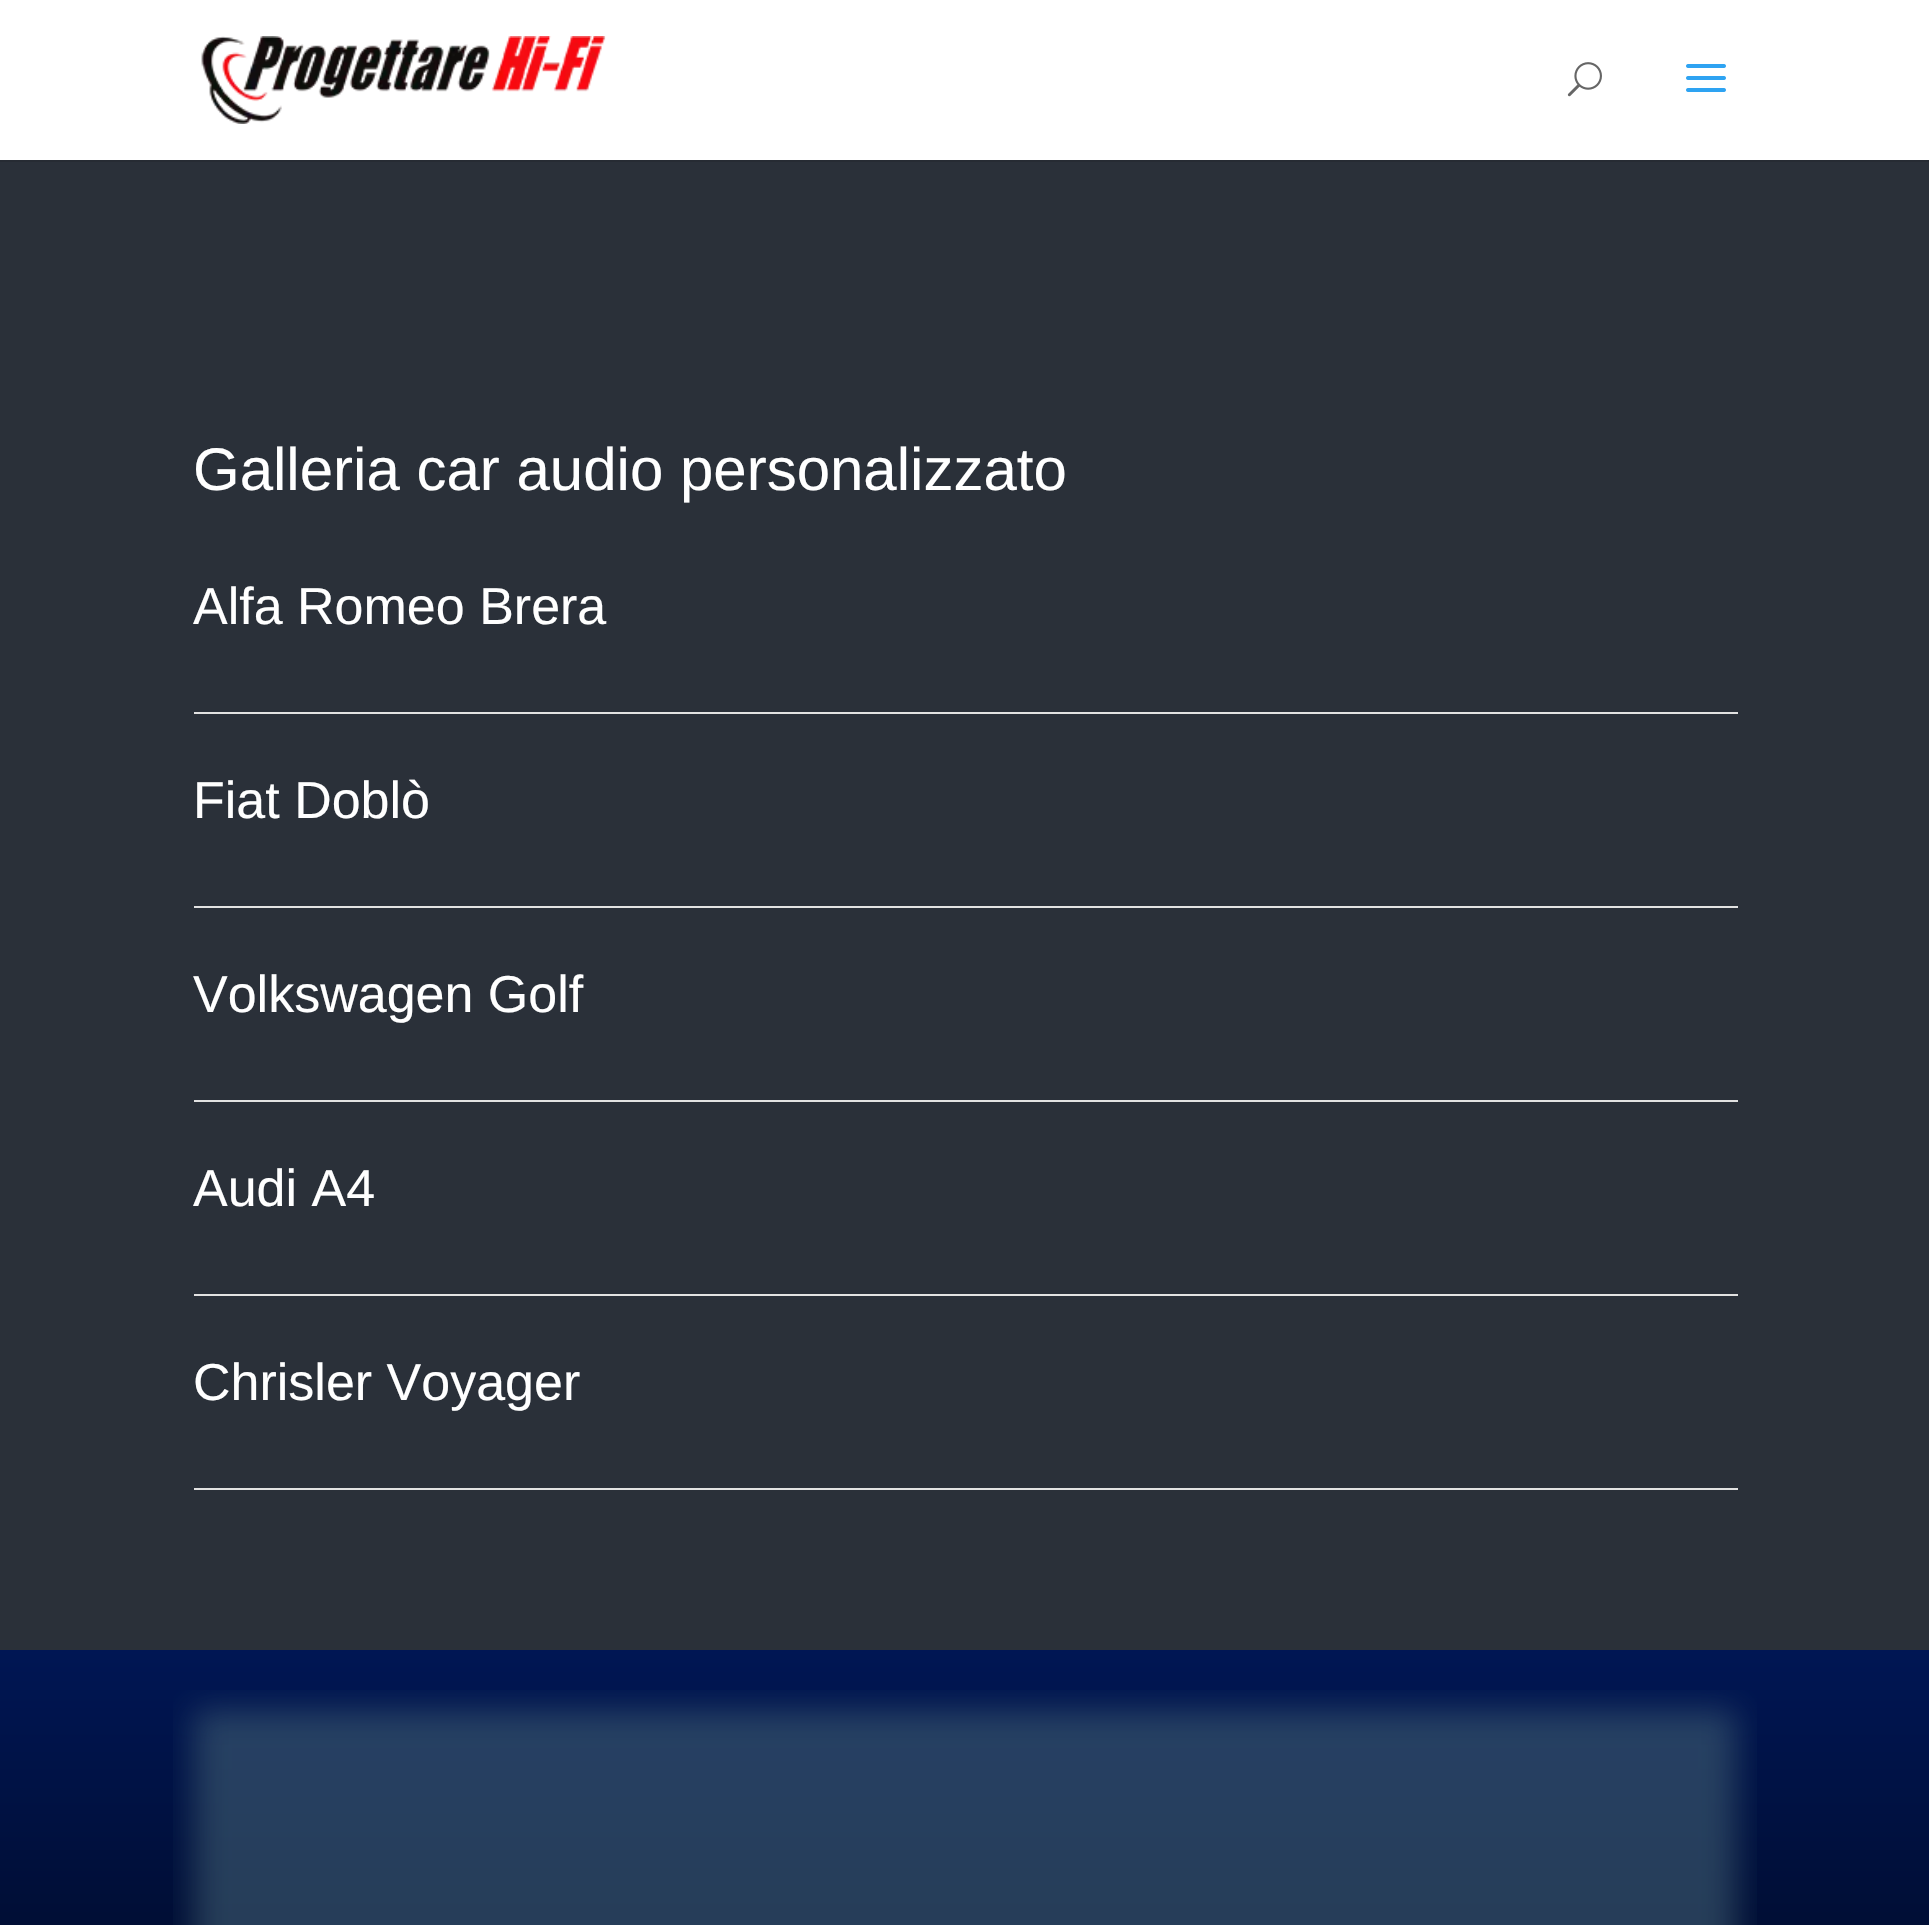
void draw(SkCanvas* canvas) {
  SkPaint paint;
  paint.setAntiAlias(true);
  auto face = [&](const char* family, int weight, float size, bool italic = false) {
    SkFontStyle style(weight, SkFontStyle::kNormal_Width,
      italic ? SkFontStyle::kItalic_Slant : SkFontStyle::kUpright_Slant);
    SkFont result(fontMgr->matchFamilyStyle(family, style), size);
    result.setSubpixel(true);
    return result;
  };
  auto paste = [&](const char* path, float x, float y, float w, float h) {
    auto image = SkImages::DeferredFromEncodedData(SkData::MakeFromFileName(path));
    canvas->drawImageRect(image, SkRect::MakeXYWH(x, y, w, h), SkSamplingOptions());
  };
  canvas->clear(0xffffffff);
  paint.setColor(0xff262b33);
  canvas->drawRect(SkRect::MakeXYWH(0, 160, 1929, 2), paint);
  paste("img/1.png", 201, 36, 405, 88);
  paste("img/2.png", 1567, 62, 35, 35);
  paste("img/3.png", 1686, 64, 40, 28);
  {
    const struct { float x, y, w, h; SkColor color; } items[] = {
      {0, 162, 1929, 1488, 0xff2a3039},
      {194, 712, 1544, 2, 0xffe2e2e2},
      {194, 906, 1544, 2, 0xffe2e2e2},
      {194, 1100, 1544, 2, 0xffe2e2e2},
      {194, 1294, 1544, 2, 0xffe2e2e2},
      {194, 1488, 1544, 2, 0xffe2e2e2},
    };
    for (auto [x, y, w, h, color] : items) {
      paint.setColor(color);
      canvas->drawRect(SkRect::MakeXYWH(x, y, w, h), paint);
    }
  }
  {
    const SkColor colors[] = {0xff001654, 0xff000000};
    const float stops[] = {0, 0.67f};
    const SkPoint ends[] = {{965, 1650}, {965, 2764}};
    paint.setShader(SkGradientShader::MakeLinear(ends, colors, stops, 2, SkTileMode::kClamp));
    paint.setAlpha(255);
  }
  canvas->drawRect(SkRect::MakeXYWH(0, 1650, 1929, 275), paint);
  paste("img/4.png", 173, 1690, 1584, 235);
  auto f0 = face("Liberation Sans", 400, 60);
  paint.setShader(nullptr);
  paint.setColor(0xffffffff);
  canvas->drawString("Galleria car audio personalizzato", 193, 490, f0, paint);
  auto f1 = face("Liberation Sans", 400, 52);
  {
    const struct { const char* s; float x, y; } items[] = {
      {"Alfa Romeo Brera", 193, 624},
      {"Fiat Doblò", 193, 818},
      {"Volkswagen Golf", 193, 1012},
      {"Audi A4", 193, 1206},
      {"Chrisler Voyager", 193, 1400},
    };
    for (auto [s, x, y] : items) {
      canvas->drawString(s, x, y, f1, paint);
    }
  }
}
